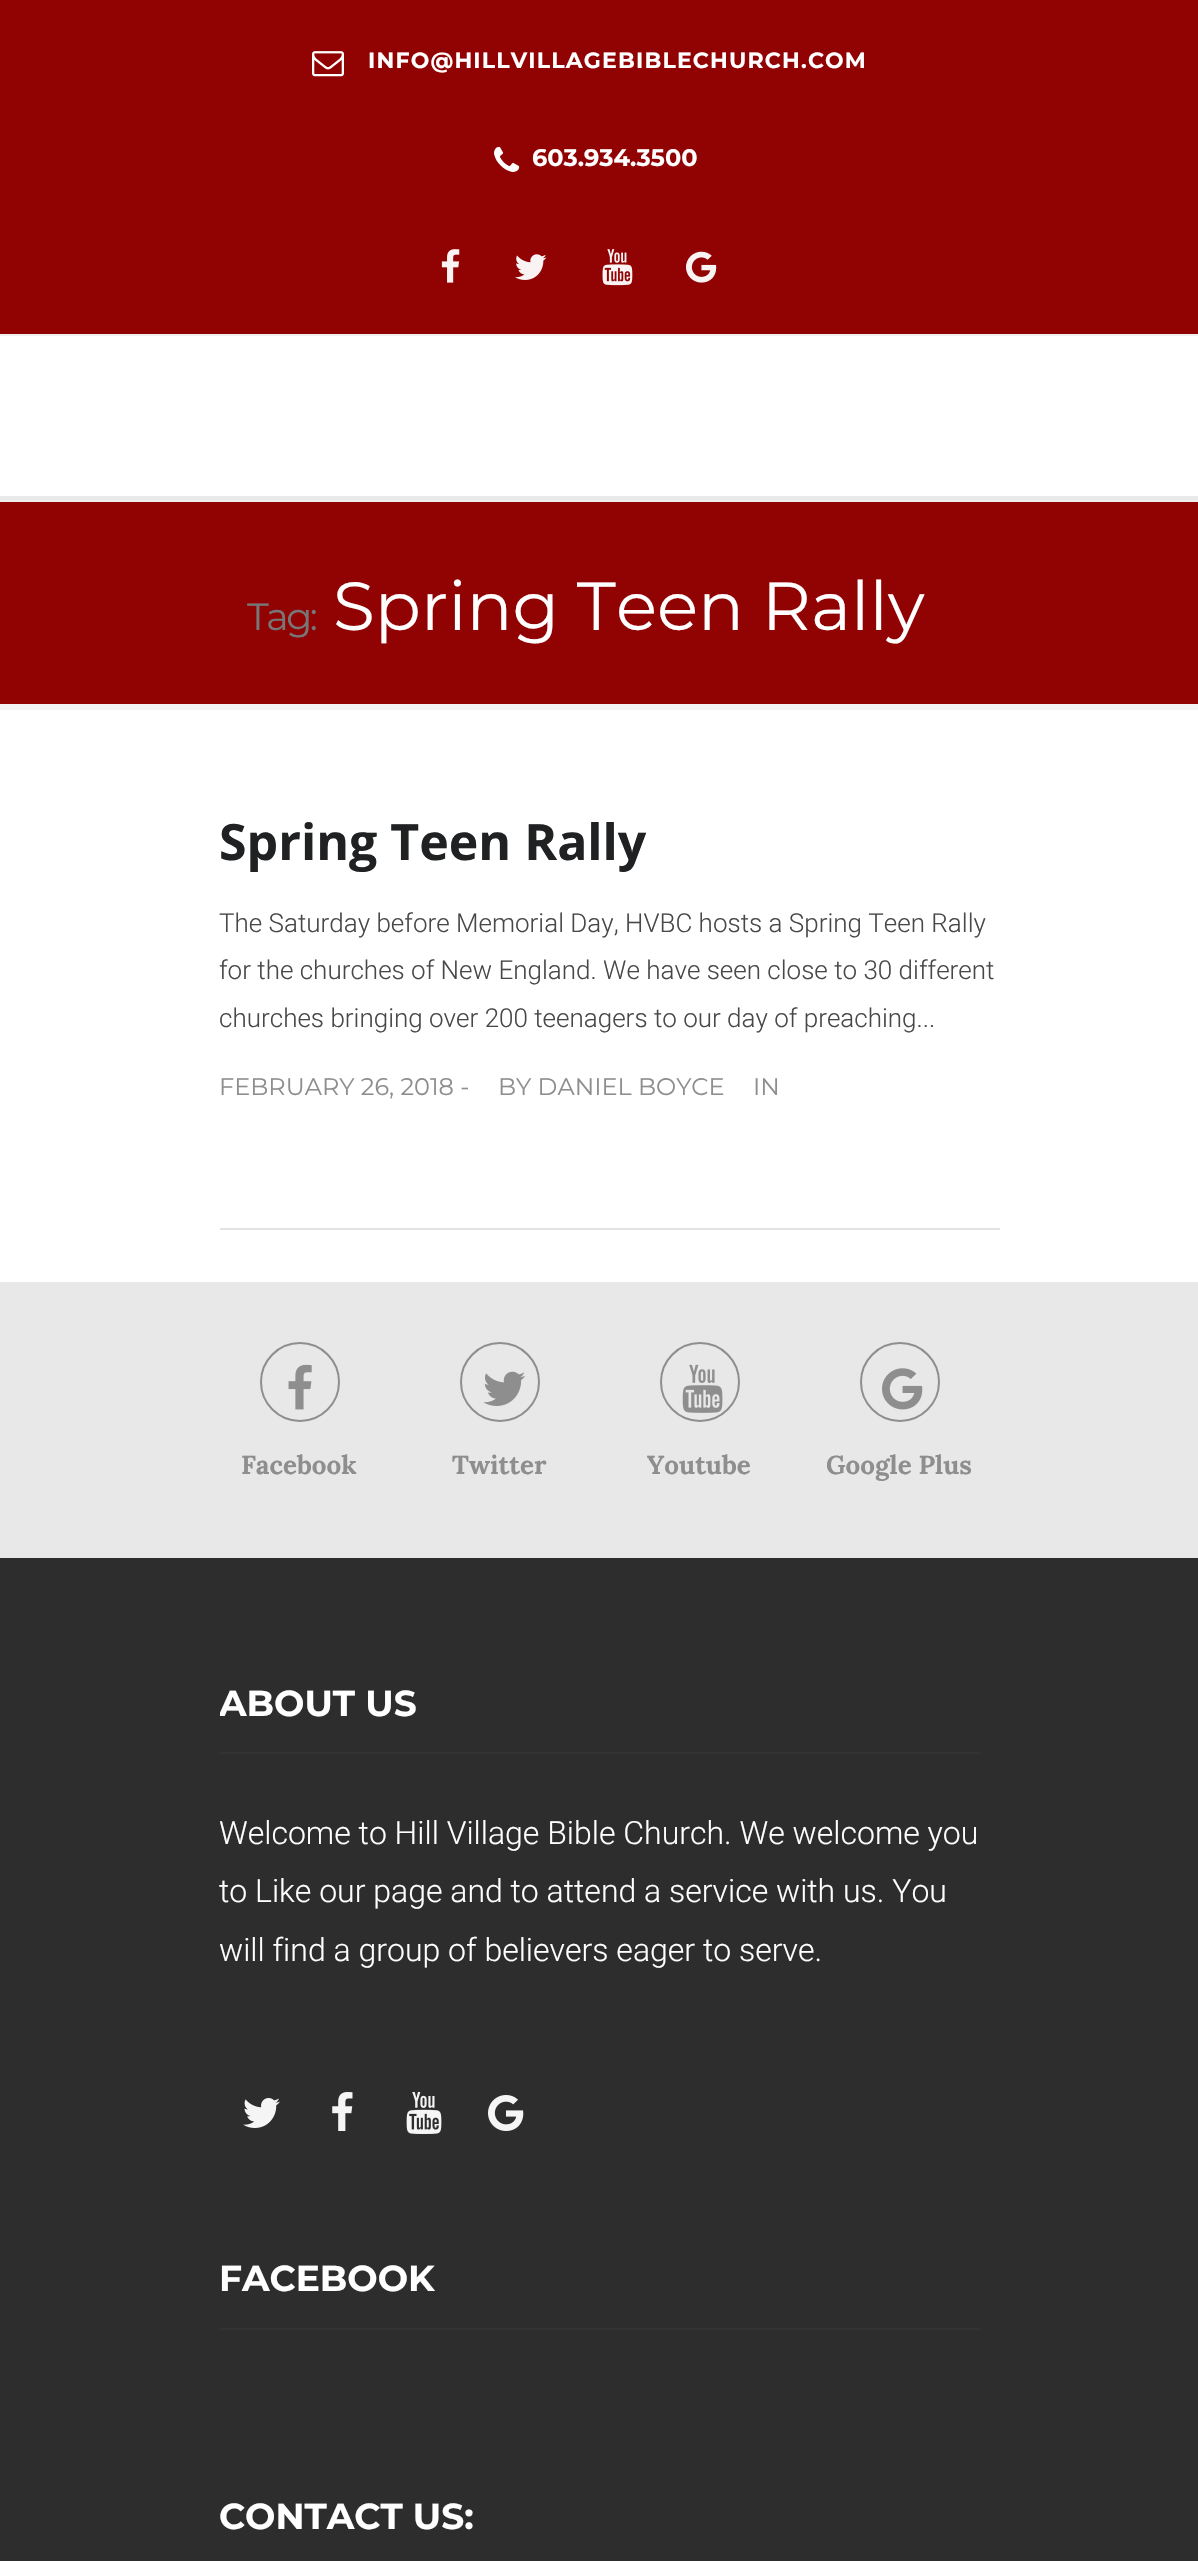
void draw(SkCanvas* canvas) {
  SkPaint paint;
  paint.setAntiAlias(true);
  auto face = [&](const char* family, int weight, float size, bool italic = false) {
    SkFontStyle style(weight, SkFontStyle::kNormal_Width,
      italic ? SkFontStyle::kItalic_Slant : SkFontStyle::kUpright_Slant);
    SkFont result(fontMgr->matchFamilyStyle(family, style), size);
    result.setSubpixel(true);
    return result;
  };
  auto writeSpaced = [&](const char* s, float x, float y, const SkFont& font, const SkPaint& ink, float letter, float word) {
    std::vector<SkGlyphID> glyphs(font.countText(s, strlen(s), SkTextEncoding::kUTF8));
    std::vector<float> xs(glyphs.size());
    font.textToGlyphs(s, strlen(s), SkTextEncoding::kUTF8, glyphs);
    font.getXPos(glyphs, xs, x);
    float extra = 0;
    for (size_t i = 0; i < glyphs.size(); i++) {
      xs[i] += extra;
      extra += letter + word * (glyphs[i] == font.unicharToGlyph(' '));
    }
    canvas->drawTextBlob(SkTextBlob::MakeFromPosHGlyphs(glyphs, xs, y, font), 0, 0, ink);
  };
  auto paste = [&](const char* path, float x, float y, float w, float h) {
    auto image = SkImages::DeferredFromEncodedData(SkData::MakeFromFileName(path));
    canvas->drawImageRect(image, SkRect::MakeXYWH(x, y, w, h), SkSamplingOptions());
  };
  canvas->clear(0xffffffff);
  paint.setColor(0xff910202);
  canvas->drawRect(SkRect::MakeXYWH(0, 0, 1198, 334), paint);
  paint.setColor(0xfff1f1f1);
  canvas->drawRect(SkRect::MakeXYWH(0, 334, 1198, 2), paint);
  paste("img/1.png", 312, 51, 32, 26);
  paste("img/2.png", 494, 146, 26, 26);
  paste("img/3.png", 441, 249, 19, 34);
  paste("img/4.png", 515, 254, 32, 26);
  paste("img/5.png", 602, 249, 31, 37);
  paste("img/6.png", 686, 251, 31, 32);
  {
    const struct { float x, y, w, h; SkColor color; } items[] = {
      {0, 496, 1198, 4, 0xffe9e9e9},
      {0, 502, 1198, 202, 0xff910202},
      {0, 500, 1198, 2, 0xffeeeeee},
      {0, 704, 1198, 6, 0xfff3f3f3},
      {220, 1228, 780, 2, 0xffe3e3e3},
      {0, 1282, 1198, 276, 0xffe8e8e8},
    };
    for (auto [x, y, w, h, color] : items) {
      paint.setColor(color);
      canvas->drawRect(SkRect::MakeXYWH(x, y, w, h), paint);
    }
  }
  paint.setStroke(true);
  paint.setStrokeWidth(2);
  paint.setColor(0xff8e8e8e);
  canvas->drawCircle(300, 1382, 39, paint);
  paste("img/7.png", 288, 1364, 24, 46);
  canvas->drawCircle(500, 1382, 39, paint);
  paste("img/8.png", 483, 1371, 42, 35);
  canvas->drawCircle(700, 1382, 39, paint);
  paste("img/9.png", 682, 1364, 41, 49);
  canvas->drawCircle(900, 1382, 39, paint);
  paste("img/10.png", 882, 1368, 41, 42);
  paint.setStroke(false);
  paint.setColor(0xff2d2d2d);
  canvas->drawRect(SkRect::MakeXYWH(0, 1558, 1198, 1003), paint);
  paint.setColor(0xff333333);
  canvas->drawRect(SkRect::MakeXYWH(220, 1752, 760, 2), paint);
  paste("img/11.png", 243, 2098, 37, 30);
  paste("img/12.png", 332, 2092, 21, 39);
  paste("img/13.png", 406, 2092, 36, 42);
  paste("img/14.png", 488, 2095, 36, 36);
  canvas->drawRect(SkRect::MakeXYWH(220, 2328, 760, 2), paint);
  auto f0 = face("Montserrat", 700, 22);
  paint.setColor(0xffffffff);
  writeSpaced("INFO@HILLVILLAGEBIBLECHURCH.COM", 368, 68, f0, paint, 1.2f, 0);
  auto f1 = face("Montserrat", 700, 24);
  canvas->drawString("603.934.3500", 532, 166, f1, paint);
  auto f2 = face("Montserrat", 400, 38);
  paint.setColor(0xff777777);
  writeSpaced("Tag:", 247, 630, f2, paint, -2.5f, 0);
  auto f3 = face("Montserrat", 400, 68);
  paint.setColor(0xffffffff);
  canvas->drawString("Spring Teen Rally", 333, 630, f3, paint);
  auto f4 = face("Open Sans", 700, 50);
  paint.setColor(0xff1f2123);
  canvas->drawString("Spring Teen Rally", 219, 860, f4, paint);
  auto f5 = face("Roboto", 300, 26);
  paint.setColor(0xff484848);
  {
    const struct { const char* s; float x, y; } items[] = {
      {"The Saturday before Memorial Day, HVBC hosts a Spring Teen Rally", 219, 932},
      {"for the churches of New England. We have seen close to 30 different", 219, 979},
      {"churches bringing over 200 teenagers to our day of preaching...", 219, 1027},
    };
    for (auto [s, x, y] : items) {
      canvas->drawString(s, x, y, f5, paint);
    }
  }
  auto f6 = face("Montserrat", 400, 24);
  paint.setColor(0xff8e8e8e);
  {
    const struct { const char* s; float x, y; } items[] = {
      {"FEBRUARY 26, 2018 -", 219, 1095},
      {"BY DANIEL BOYCE", 498, 1095},
      {"IN", 753, 1095},
    };
    for (auto [s, x, y] : items) {
      canvas->drawString(s, x, y, f6, paint);
    }
  }
  auto f7 = face("Lora", 700, 26);
  {
    const struct { const char* s; float x, y; } items[] = {
      {"Facebook", 241, 1474},
      {"Twitter", 452, 1474},
      {"Youtube", 647, 1474},
      {"Google Plus", 826, 1474},
    };
    for (auto [s, x, y] : items) {
      canvas->drawString(s, x, y, f7, paint);
    }
  }
  canvas->save();
  canvas->clipRect(SkRect::MakeXYWH(220, 1658, 760, 394));
  auto f8 = face("Montserrat", 700, 36);
  paint.setColor(0xffffffff);
  canvas->drawString("ABOUT US", 219, 1716, f8, paint);
  canvas->restore();
  auto f9 = face("Roboto", 300, 32);
  {
    const struct { const char* s; float x, y; } items[] = {
      {"Welcome to Hill Village Bible Church. We welcome you", 219, 1844},
      {"to Like our page and to attend a service with us. You", 219, 1902},
      {"will find a group of believers eager to serve.", 219, 1961},
    };
    for (auto [s, x, y] : items) {
      canvas->drawString(s, x, y, f9, paint);
    }
  }
  canvas->drawString("FACEBOOK", 219, 2291, f8, paint);
  canvas->drawString("CONTACT US:", 219, 2529, f8, paint);
}
